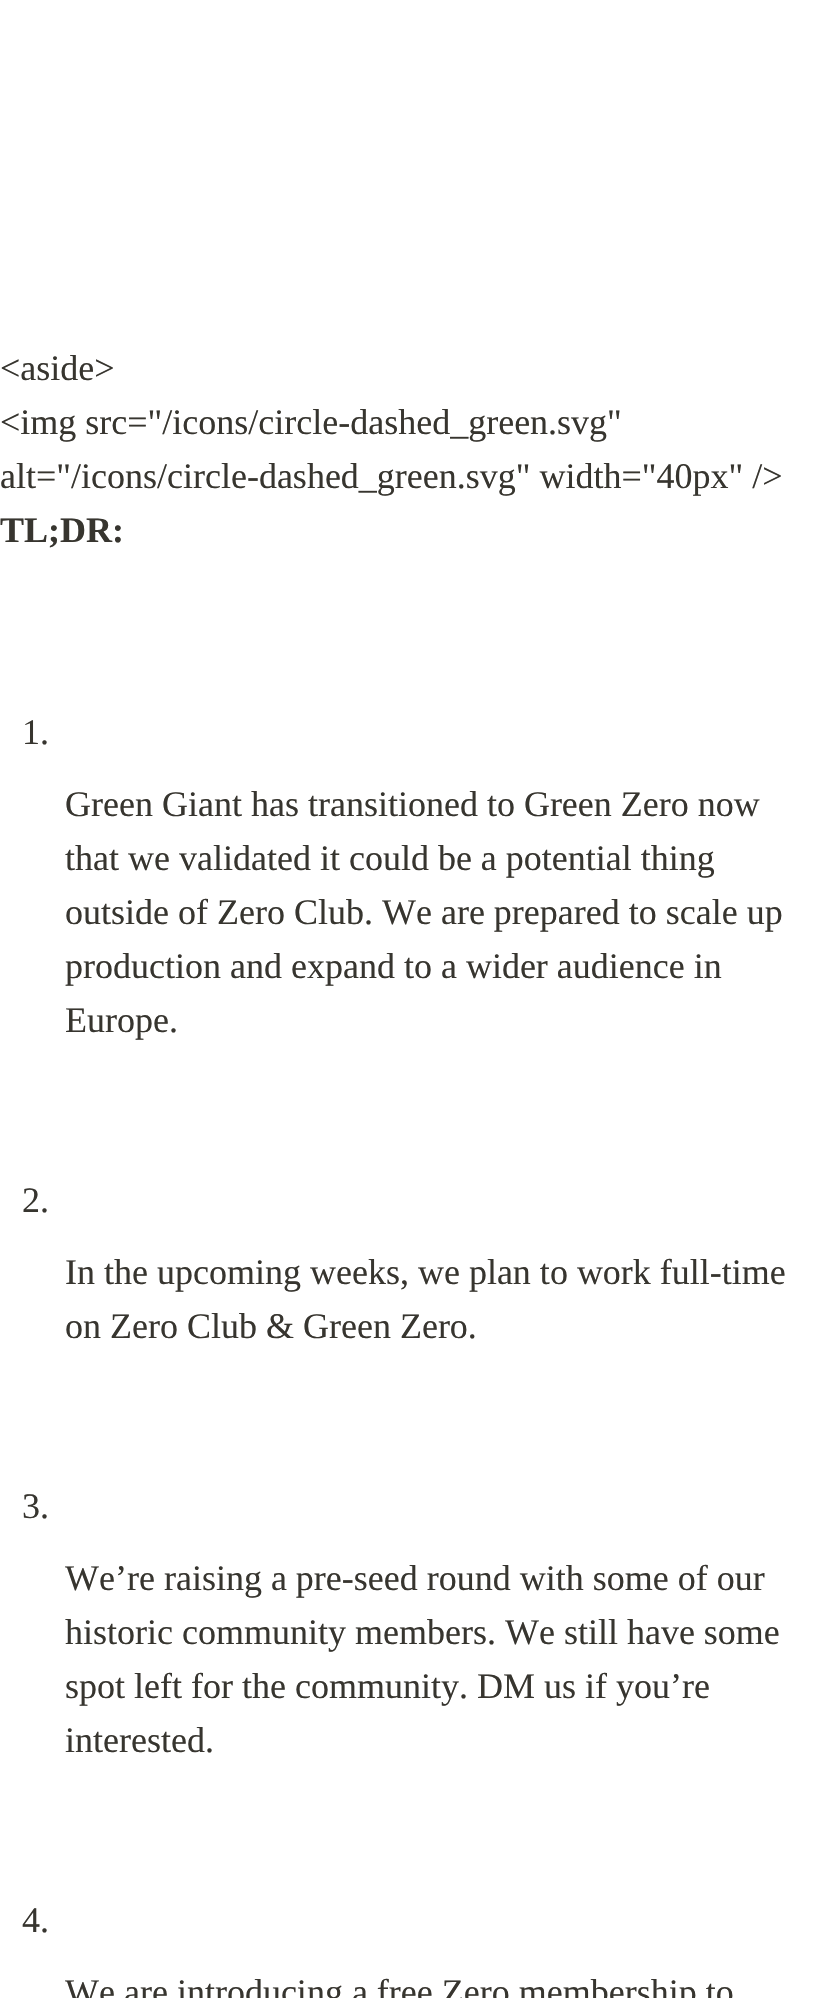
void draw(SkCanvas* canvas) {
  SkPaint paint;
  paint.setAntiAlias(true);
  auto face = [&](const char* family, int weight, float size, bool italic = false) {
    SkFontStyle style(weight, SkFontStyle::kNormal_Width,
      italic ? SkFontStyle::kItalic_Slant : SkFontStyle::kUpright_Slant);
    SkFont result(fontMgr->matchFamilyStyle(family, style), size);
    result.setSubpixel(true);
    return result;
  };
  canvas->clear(0xffffffff);
  auto f0 = face("Liberation Serif", 400, 36);
  paint.setColor(0xff37352f);
  {
    const struct { const char* s; float x, y; } items[] = {
      {"<aside>", 0, 380},
      {"<img src=\"/icons/circle-dashed_green.svg\"", 0, 434},
      {"alt=\"/icons/circle-dashed_green.svg\" width=\"40px\" />", 0, 488},
    };
    for (auto [s, x, y] : items) {
      canvas->drawString(s, x, y, f0, paint);
    }
  }
  auto f1 = face("Liberation Serif", 700, 36);
  canvas->drawString("TL;DR:", 0, 542, f1, paint);
  {
    const struct { const char* s; float x, y; } items[] = {
      {"1.", 22, 744},
      {"Green Giant has transitioned to Green Zero now", 65, 816},
      {"that we validated it could be a potential thing", 65, 870},
      {"outside of Zero Club. We are prepared to scale up", 65, 924},
      {"production and expand to a wider audience in", 65, 978},
      {"Europe.", 65, 1032},
      {"2.", 22, 1212},
      {"In the upcoming weeks, we plan to work full-time", 65, 1284},
      {"on Zero Club & Green Zero.", 65, 1338},
      {"3.", 22, 1518},
      {"We’re raising a pre-seed round with some of our", 65, 1590},
      {"historic community members. We still have some", 65, 1644},
      {"spot left for the community. DM us if you’re", 65, 1698},
      {"interested.", 65, 1752},
      {"4.", 22, 1932},
      {"We are introducing a free Zero membership to", 65, 2004},
    };
    for (auto [s, x, y] : items) {
      canvas->drawString(s, x, y, f0, paint);
    }
  }
}
